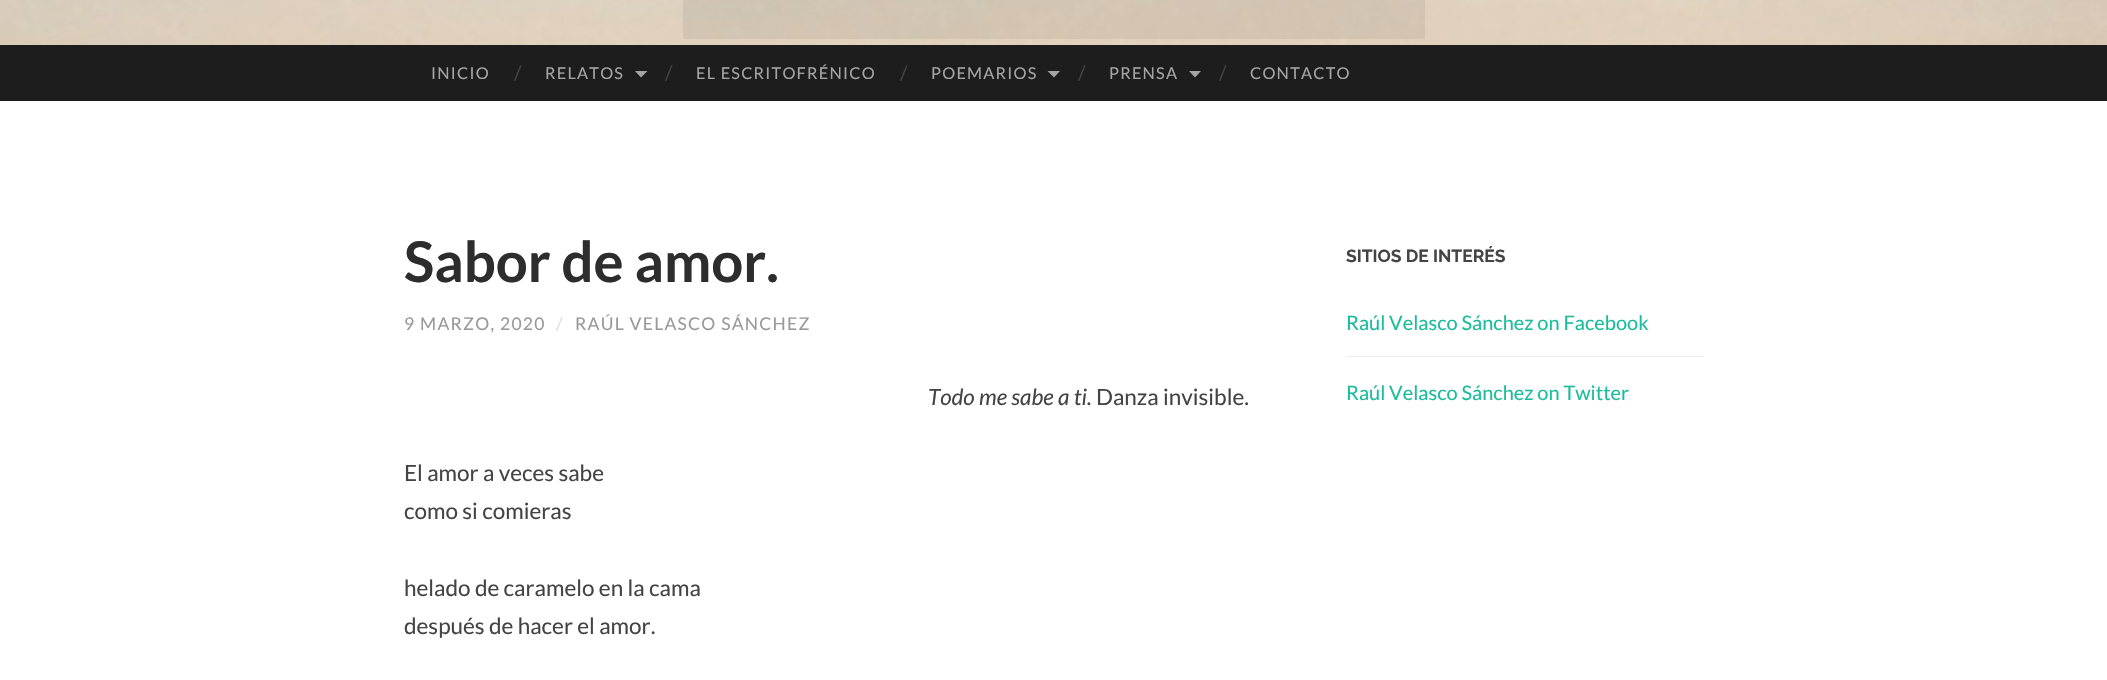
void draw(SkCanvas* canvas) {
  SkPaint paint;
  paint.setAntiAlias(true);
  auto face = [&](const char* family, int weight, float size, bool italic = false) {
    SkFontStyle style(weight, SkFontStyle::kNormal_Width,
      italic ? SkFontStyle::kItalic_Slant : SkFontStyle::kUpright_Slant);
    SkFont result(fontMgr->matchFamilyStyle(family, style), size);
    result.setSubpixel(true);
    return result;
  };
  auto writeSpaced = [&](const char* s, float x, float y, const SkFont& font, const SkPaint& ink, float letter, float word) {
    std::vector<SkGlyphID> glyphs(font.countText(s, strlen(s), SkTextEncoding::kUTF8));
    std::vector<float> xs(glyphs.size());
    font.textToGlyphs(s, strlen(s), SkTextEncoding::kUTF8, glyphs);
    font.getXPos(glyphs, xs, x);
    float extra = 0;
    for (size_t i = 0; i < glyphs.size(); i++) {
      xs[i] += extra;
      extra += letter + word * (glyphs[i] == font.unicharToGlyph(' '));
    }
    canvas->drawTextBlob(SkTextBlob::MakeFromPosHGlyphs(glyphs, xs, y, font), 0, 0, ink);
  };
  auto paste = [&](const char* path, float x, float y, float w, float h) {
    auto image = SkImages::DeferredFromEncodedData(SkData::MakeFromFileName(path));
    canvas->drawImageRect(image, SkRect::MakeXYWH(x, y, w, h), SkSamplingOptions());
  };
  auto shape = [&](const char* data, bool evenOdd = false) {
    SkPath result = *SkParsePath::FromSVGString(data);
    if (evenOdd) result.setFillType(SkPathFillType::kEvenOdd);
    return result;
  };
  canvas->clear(0xffffffff);
  paste("img/1.png", 0, 0, 2107, 45);
  paint.setColor(0x121d1d1d);
  canvas->drawRect(SkRect::MakeXYWH(683, 0, 742, 39), paint);
  paint.setColor(0xff1d1d1d);
  canvas->drawRect(SkRect::MakeXYWH(0, 45, 2107, 56), paint);
  paint.setColor(0xffa5a5a5);
  canvas->drawPath(shape("M635 71H647.5L641 77.5Z"), paint);
  canvas->drawPath(shape("M1047.5 71H1060L1054 77.5Z"), paint);
  canvas->drawPath(shape("M1189 71H1201L1195 77.5Z"), paint);
  paint.setColor(0xffeeeeee);
  canvas->drawRect(SkRect::MakeXYWH(1346, 356, 358, 1), paint);
  auto f0 = face("Lato", 400, 16.25f);
  paint.setColor(0xffa5a5a5);
  writeSpaced("INICIO", 431, 79, f0, paint, 1.25f, 0);
  auto f1 = face("Lato", 400, 20);
  paint.setColor(0xff444444);
  canvas->drawString("/", 514, 80, f1, paint);
  paint.setColor(0xffa5a5a5);
  writeSpaced("RELATOS", 545, 79, f0, paint, 1.25f, 0);
  paint.setColor(0xff444444);
  canvas->drawString("/", 665, 80, f1, paint);
  paint.setColor(0xffa5a5a5);
  writeSpaced("EL ESCRITOFRÉNICO", 696, 79, f0, paint, 1.25f, 0);
  paint.setColor(0xff444444);
  canvas->drawString("/", 900, 80, f1, paint);
  paint.setColor(0xffa5a5a5);
  writeSpaced("POEMARIOS", 931, 79, f0, paint, 1.25f, 0);
  paint.setColor(0xff444444);
  canvas->drawString("/", 1078, 80, f1, paint);
  paint.setColor(0xffa5a5a5);
  writeSpaced("PRENSA", 1109, 79, f0, paint, 1.25f, 0);
  paint.setColor(0xff444444);
  canvas->drawString("/", 1219, 80, f1, paint);
  paint.setColor(0xffa5a5a5);
  writeSpaced("CONTACTO", 1250, 79, f0, paint, 1.25f, 0);
  auto f2 = face("Lato", 700, 56.25f);
  paint.setColor(0xff2d2d2d);
  canvas->drawString("Sabor de amor.", 404, 282, f2, paint);
  auto f3 = face("Lato", 400, 17.5f);
  paint.setColor(0xff999999);
  writeSpaced("9 MARZO, 2020", 404, 330, f3, paint, 1.25f, 0);
  paint.setColor(0xffdddddd);
  writeSpaced("/", 556, 330, f3, paint, 1.25f, 0);
  paint.setColor(0xff999999);
  writeSpaced("RAÚL VELASCO SÁNCHEZ", 575, 330, f3, paint, 1.25f, 0);
  auto f4 = face("Lato", 400, 22.5f, true);
  paint.setColor(0xff444444);
  canvas->drawString("Todo me sabe a ti.", 928, 405, f4, paint);
  auto f5 = face("Lato", 400, 22.5f);
  {
    const struct { const char* s; float x, y; } items[] = {
      {"Danza invisible.", 1096, 405},
      {"El amor a veces sabe", 404, 481},
      {"como si comieras", 404, 519},
      {"helado de caramelo en la cama", 404, 596},
      {"después de hacer el amor.", 404, 634},
    };
    for (auto [s, x, y] : items) {
      canvas->drawString(s, x, y, f5, paint);
    }
  }
  auto f6 = face("Raleway", 700, 17.5f);
  canvas->drawString("SITIOS DE INTERÉS", 1346, 262, f6, paint);
  paint.setColor(0xff1abc9c);
  canvas->drawString("Raúl Velasco Sánchez on Facebook", 1346, 330, f1, paint);
  canvas->drawString("Raúl Velasco Sánchez on Twitter", 1346, 400, f1, paint);
}
